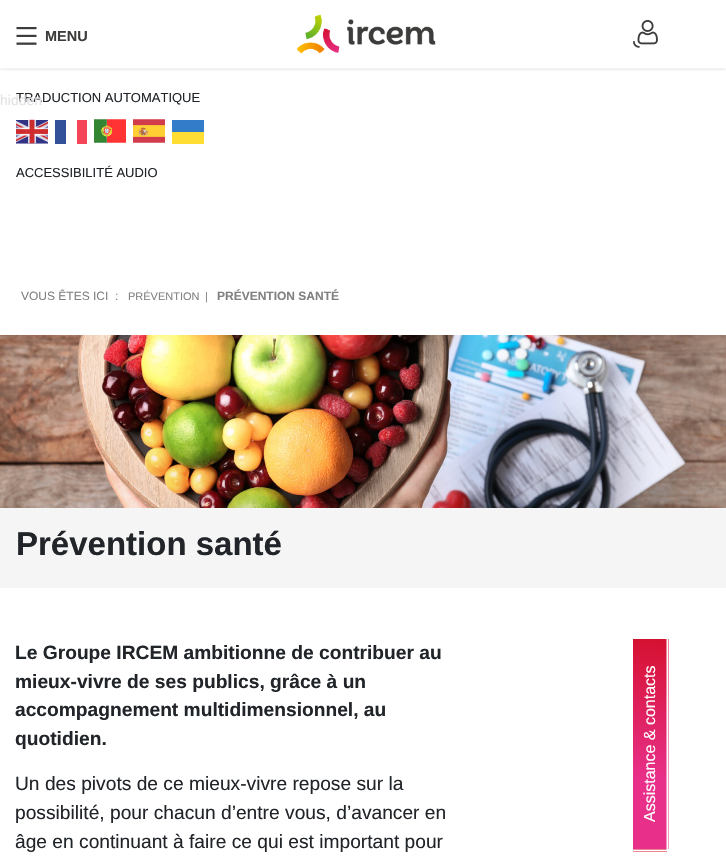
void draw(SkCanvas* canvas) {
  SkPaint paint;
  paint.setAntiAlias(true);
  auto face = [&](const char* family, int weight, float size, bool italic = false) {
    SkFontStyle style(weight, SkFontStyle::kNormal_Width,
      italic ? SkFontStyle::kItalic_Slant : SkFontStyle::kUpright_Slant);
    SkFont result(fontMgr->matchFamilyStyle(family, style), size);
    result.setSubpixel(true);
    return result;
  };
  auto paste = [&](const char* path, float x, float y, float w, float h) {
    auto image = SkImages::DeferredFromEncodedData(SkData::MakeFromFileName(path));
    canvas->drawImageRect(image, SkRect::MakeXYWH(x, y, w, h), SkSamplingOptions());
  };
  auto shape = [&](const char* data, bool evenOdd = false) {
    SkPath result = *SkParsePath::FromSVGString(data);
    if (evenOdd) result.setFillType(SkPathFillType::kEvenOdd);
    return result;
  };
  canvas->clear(0xffffffff);
  canvas->save();
  canvas->clipRect(SkRect::MakeXYWH(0, 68, 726, 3));
  paint.setColor(0x12000000);
  paint.setMaskFilter(SkMaskFilter::MakeBlur(kNormal_SkBlurStyle, 2));
  canvas->drawRect(SkRect::MakeXYWH(0, 2, 726, 68), paint);
  paint.setMaskFilter(nullptr);
  canvas->restore();
  paste("img/1.png", 16, 27, 21, 18);
  paste("img/2.png", 296, 14, 140, 40);
  paste("img/3.png", 633, 20, 25, 28);
  paste("img/4.png", 16, 119, 32, 25);
  paint.setColor(0xff335199);
  canvas->drawRect(SkRect::MakeXYWH(55, 120, 11, 24), paint);
  paint.setColor(0xfff54659);
  canvas->drawRect(SkRect::MakeXYWH(77, 120, 10, 24), paint);
  paste("img/5.png", 94, 119, 32, 24);
  paste("img/6.png", 133, 119, 32, 24);
  {
    const struct { float x, y, w, h; SkColor color; } items[] = {
      {172, 120, 32, 12, 0xff337cc9},
      {172, 132, 32, 12, 0xffffdd33},
      {0, 508, 726, 80, 0xfff5f5f5},
    };
    for (auto [x, y, w, h, color] : items) {
      paint.setColor(color);
      canvas->drawRect(SkRect::MakeXYWH(x, y, w, h), paint);
    }
  }
  paste("img/7.png", 0, 335, 726, 173);
  {
    const SkColor colors[] = {0xffe8308a, 0xffd51130};
    const float stops[] = {0.33f, 1};
    const SkPoint ends[] = {{646, 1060}, {653, 849}};
    paint.setShader(SkGradientShader::MakeLinear(ends, colors, stops, 2, SkTileMode::kClamp));
    paint.setAlpha(255);
  }
  canvas->drawRect(SkRect::MakeXYWH(633, 849, 34, 3), paint);
  {
    const SkColor colors[] = {0xffe8308a, 0xffd51130};
    const float stops[] = {0.33f, 1};
    const SkPoint ends[] = {{646, 850}, {653, 638}};
    paint.setShader(SkGradientShader::MakeLinear(ends, colors, stops, 2, SkTileMode::kClamp));
    paint.setAlpha(255);
  }
  canvas->drawRect(SkRect::MakeXYWH(633, 639, 34, 210), paint);
  {
    const SkColor colors[] = {0xffe8308a, 0xffd51130};
    const float stops[] = {0.33f, 1};
    const SkPoint ends[] = {{680, 850}, {687, 638}};
    paint.setShader(SkGradientShader::MakeLinear(ends, colors, stops, 2, SkTileMode::kClamp));
    paint.setAlpha(255);
  }
  canvas->drawRect(SkRect::MakeXYWH(668, 639, 1, 210), paint);
  paint.setStroke(true);
  paint.setStrokeWidth(2);
  paint.setShader(nullptr);
  paint.setColor(0xffffffff);
  canvas->drawPath(shape("M632 850.5V638H667.5V850.5Z"), paint);
  auto f0 = face("Liberation Sans", 700, 14.5f);
  paint.setStroke(false);
  paint.setColor(0xff3c3c3b);
  canvas->drawString("MENU", 45, 41, f0, paint);
  auto f1 = face("Liberation Sans", 400, 13);
  paint.setColor(0xff212529);
  canvas->drawString("TRADUCTION AUTOMATIQUE", 16, 102, f1, paint);
  canvas->drawString("ACCESSIBILITÉ AUDIO", 16, 177, f1, paint);
  auto f2 = face("Liberation Sans", 400, 12);
  paint.setColor(0xff818181);
  canvas->drawString("VOUS ÊTES ICI  :", 21, 300, f2, paint);
  auto f3 = face("Liberation Sans", 400, 11);
  canvas->drawString("PRÉVENTION", 128, 300, f3, paint);
  canvas->drawString("|", 205, 300, f3, paint);
  auto f4 = face("Liberation Sans", 700, 12);
  canvas->drawString("PRÉVENTION SANTÉ", 217, 300, f4, paint);
  auto f5 = face("Liberation Sans", 700, 33);
  paint.setColor(0xff212529);
  canvas->drawString("Prévention santé", 16, 555, f5, paint);
  auto f6 = face("Liberation Sans", 700, 19.2f);
  {
    const struct { const char* s; float x, y; } items[] = {
      {"Le Groupe IRCEM ambitionne de contribuer au", 15, 659},
      {"mieux-vivre de ses publics, grâce à un", 15, 688},
      {"accompagnement multidimensionnel, au", 15, 716},
      {"quotidien.", 15, 745},
    };
    for (auto [s, x, y] : items) {
      canvas->drawString(s, x, y, f6, paint);
    }
  }
  auto f7 = face("Liberation Sans", 400, 19.2f);
  {
    const struct { const char* s; float x, y; } items[] = {
      {"Un des pivots de ce mieux-vivre repose sur la", 15, 790},
      {"possibilité, pour chacun d’entre vous, d’avancer en", 15, 819},
      {"âge en continuant à faire ce qui est important pour", 15, 848},
    };
    for (auto [s, x, y] : items) {
      canvas->drawString(s, x, y, f7, paint);
    }
  }
  auto f8 = face("Liberation Sans", 400, 14);
  paint.setColor(0xffe3e3e4);
  canvas->drawString("hidden", 0, 105, f8, paint);
  auto f9 = face("Liberation Sans", 400, 16);
  paint.setColor(0xffffffff);
  canvas->save();
  canvas->rotate(-90, 655, 822);
  canvas->drawString("Assistance & contacts", 655, 822, f9, paint);
  canvas->restore();
}
